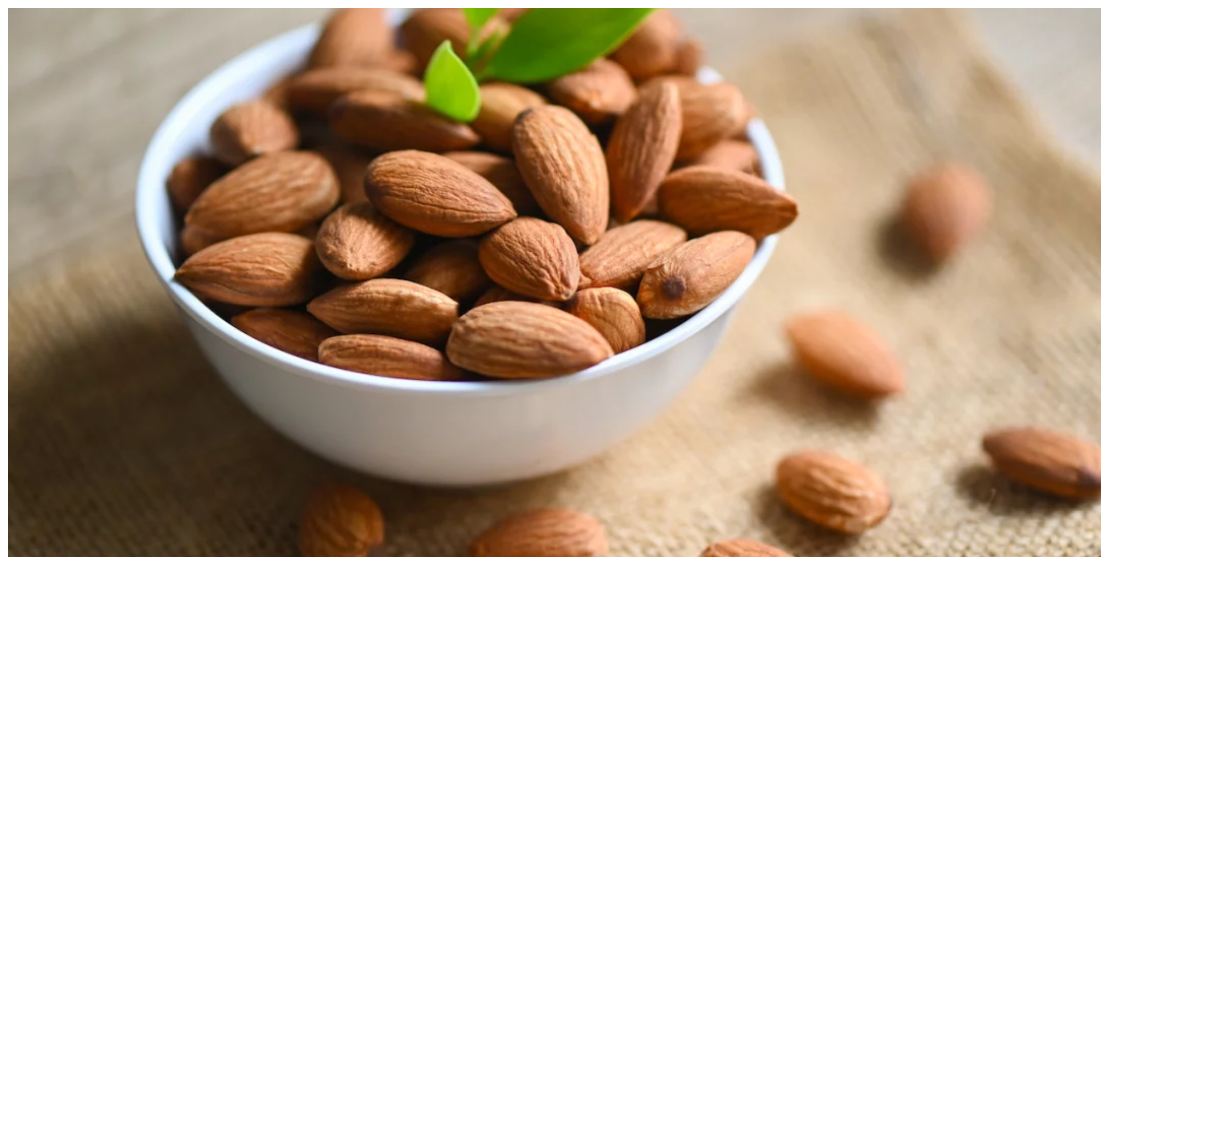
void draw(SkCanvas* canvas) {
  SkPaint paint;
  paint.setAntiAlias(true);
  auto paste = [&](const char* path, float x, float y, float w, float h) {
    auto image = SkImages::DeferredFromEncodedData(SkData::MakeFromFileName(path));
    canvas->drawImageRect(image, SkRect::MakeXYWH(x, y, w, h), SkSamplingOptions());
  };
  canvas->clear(0xffffffff);
  paste("img/1.png", 8, 8, 1093, 549);
}
